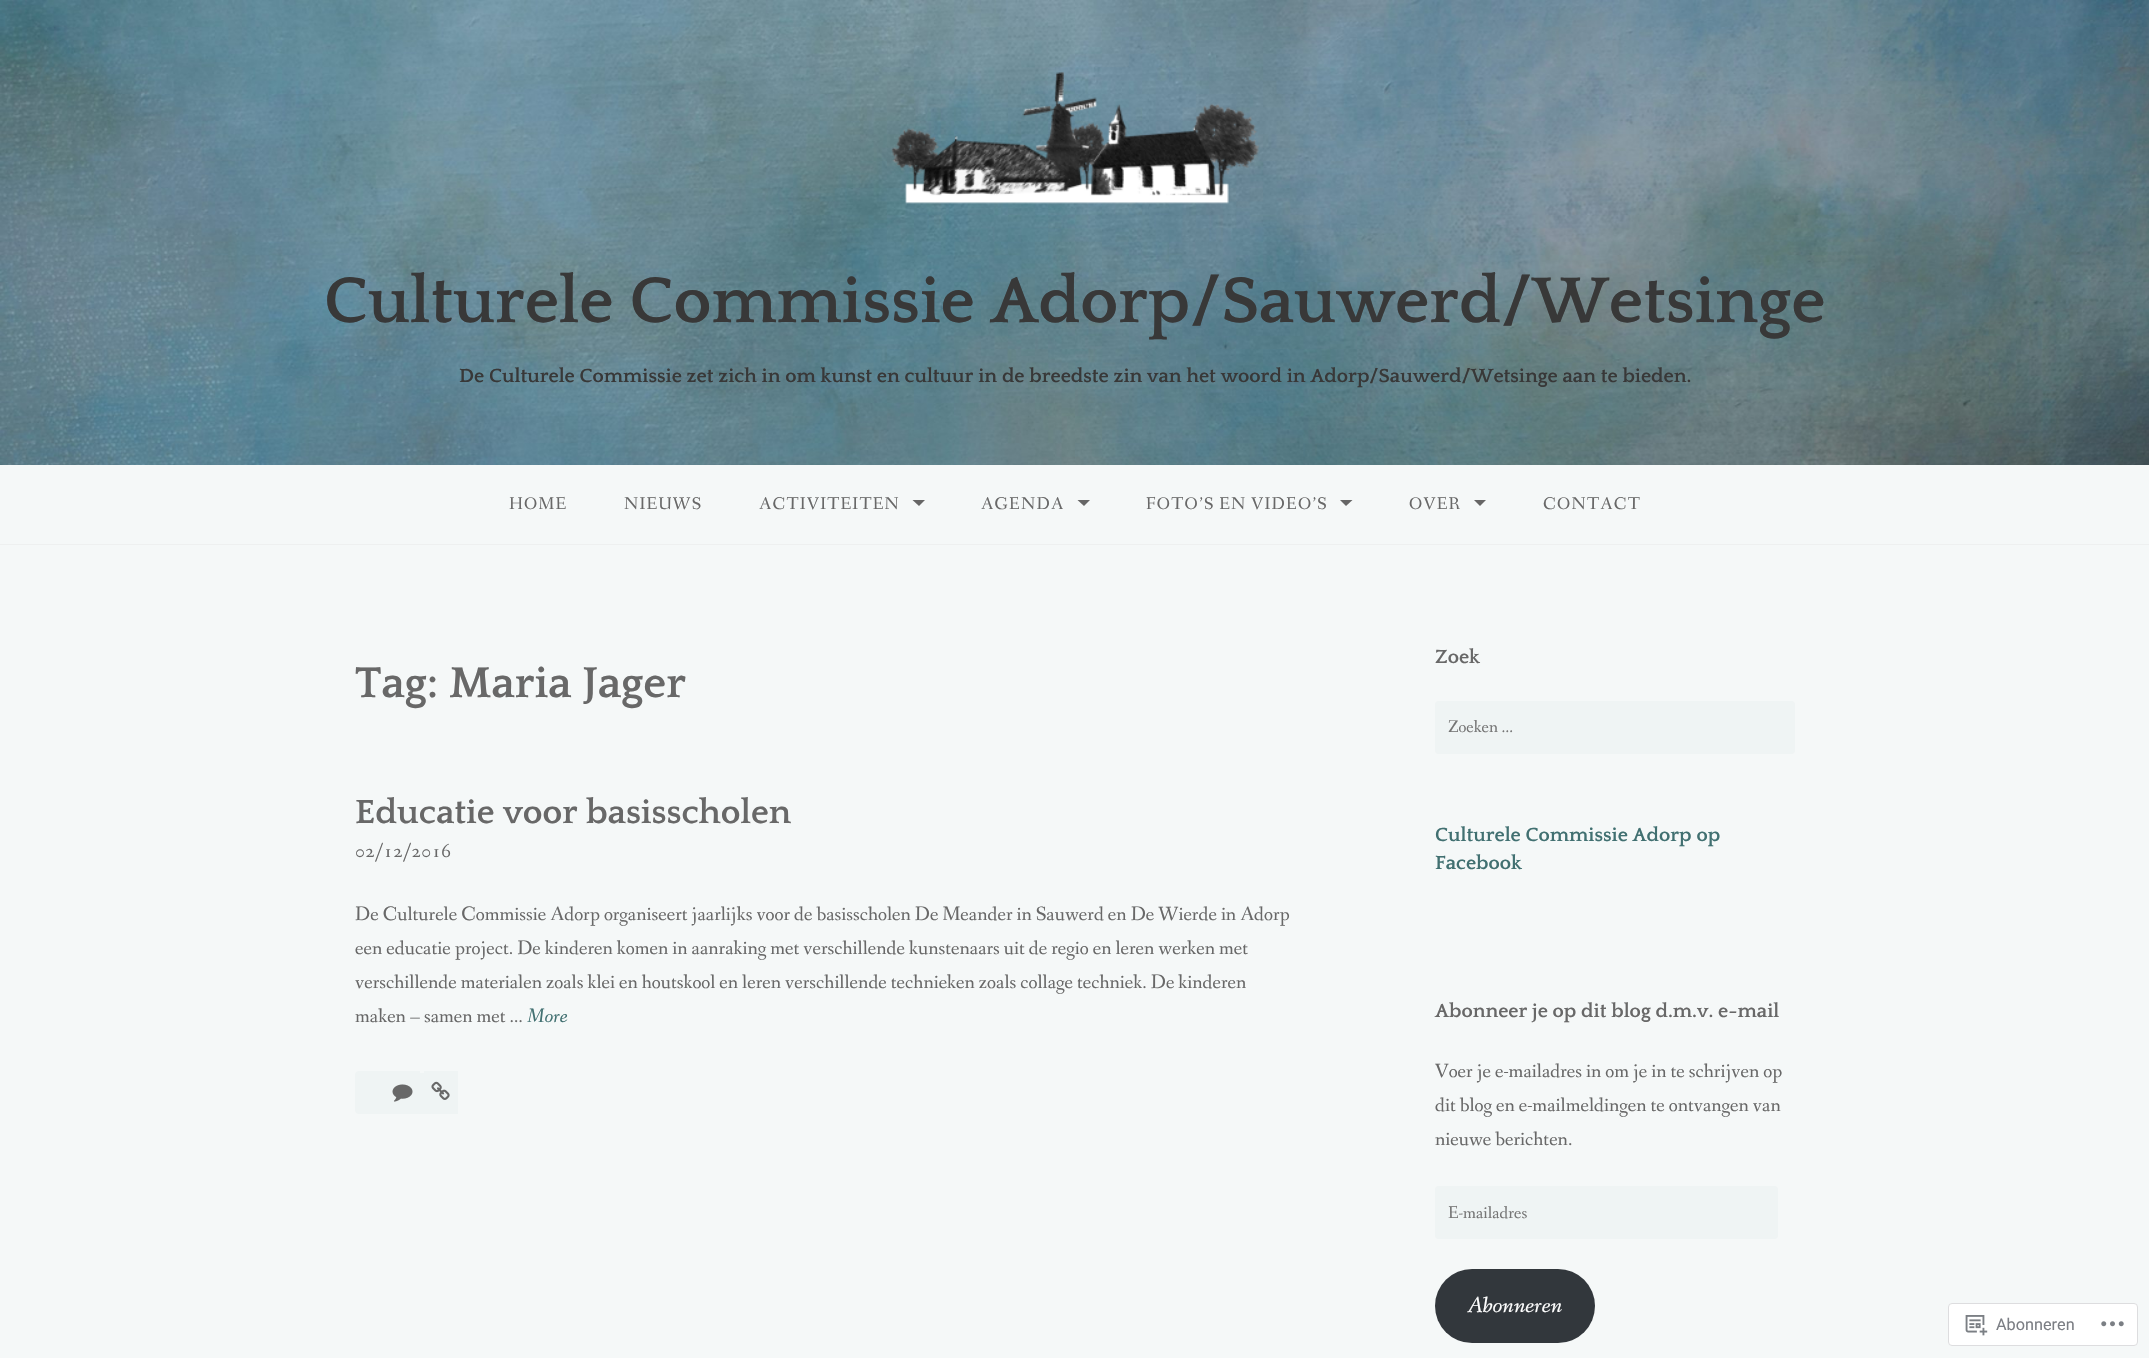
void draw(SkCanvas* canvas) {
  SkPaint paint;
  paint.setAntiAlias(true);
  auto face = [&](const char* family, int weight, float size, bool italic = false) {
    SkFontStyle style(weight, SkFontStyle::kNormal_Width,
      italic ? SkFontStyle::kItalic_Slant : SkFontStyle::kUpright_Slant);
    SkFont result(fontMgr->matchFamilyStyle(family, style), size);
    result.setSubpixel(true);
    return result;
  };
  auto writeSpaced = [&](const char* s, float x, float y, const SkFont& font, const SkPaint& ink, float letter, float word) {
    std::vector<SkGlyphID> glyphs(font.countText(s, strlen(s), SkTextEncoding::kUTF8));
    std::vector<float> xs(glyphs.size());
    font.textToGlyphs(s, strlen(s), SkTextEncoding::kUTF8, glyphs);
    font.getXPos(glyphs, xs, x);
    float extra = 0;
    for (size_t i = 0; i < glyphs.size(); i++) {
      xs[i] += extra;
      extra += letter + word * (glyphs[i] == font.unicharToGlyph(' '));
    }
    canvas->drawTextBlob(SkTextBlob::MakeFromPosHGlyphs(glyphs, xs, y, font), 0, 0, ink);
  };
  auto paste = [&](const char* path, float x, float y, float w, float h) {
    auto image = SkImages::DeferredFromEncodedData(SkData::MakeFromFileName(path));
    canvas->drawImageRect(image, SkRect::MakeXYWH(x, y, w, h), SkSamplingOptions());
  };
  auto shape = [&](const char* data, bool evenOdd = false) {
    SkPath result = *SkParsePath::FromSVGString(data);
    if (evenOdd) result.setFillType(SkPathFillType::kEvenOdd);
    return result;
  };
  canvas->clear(0xfff5f8f8);
  paste("img/1.png", 0, 0, 2149, 465);
  paste("img/2.png", 891, 72, 368, 132);
  paint.setColor(0xffeef0f0);
  canvas->drawRect(SkRect::MakeXYWH(0, 544, 2149, 1), paint);
  paint.setColor(0xff666666);
  canvas->drawPath(shape("M912.5 500H925L919 506Z"), paint);
  canvas->drawPath(shape("M1077.5 500H1090L1084 506Z"), paint);
  canvas->drawPath(shape("M1340 500H1352.5L1346 506Z"), paint);
  canvas->drawPath(shape("M1474 500H1486L1480 506Z"), paint);
  paint.setColor(0xffeff4f4);
  canvas->drawPath(shape("M359 1071H420V1114H359C357 1114 355 1112 355 1110V1075C355 1073 357 1071 359 1071Z"), paint);
  canvas->drawRect(SkRect::MakeXYWH(420, 1073, 4, 41), paint);
  canvas->drawRect(SkRect::MakeXYWH(424, 1071, 34, 43), paint);
  paste("img/3.png", 392, 1084, 21, 18);
  paste("img/4.png", 431, 1081, 19, 19);
  canvas->drawRoundRect(SkRect::MakeXYWH(1435, 701, 360, 53), 4, 4, paint);
  canvas->drawRoundRect(SkRect::MakeXYWH(1435, 1186, 343, 53), 4, 4, paint);
  paint.setColor(0xff32373c);
  canvas->drawRoundRect(SkRect::MakeXYWH(1435, 1269, 160, 74), 37, 37, paint);
  paint.setColor(0xffffffff);
  canvas->drawRoundRect(SkRect::MakeXYWH(1948.5f, 1303.5f, 189, 42), 3.5f, 3.5f, paint);
  paint.setStroke(true);
  paint.setStrokeWidth(1);
  paint.setColor(0xffdddddf);
  canvas->drawRoundRect(SkRect::MakeXYWH(1948.5f, 1303.5f, 189, 42), 3.5f, 3.5f, paint);
  paste("img/5.png", 1965, 1315, 23, 21);
  paste("img/6.png", 2101, 1321, 23, 6);
  auto f0 = face("Quattrocento", 700, 67.5f);
  paint.setStroke(false);
  paint.setColor(0xff383838);
  canvas->drawString("Culturele Commissie Adorp/Sauwerd/Wetsinge", 324, 322, f0, paint);
  auto f1 = face("Quattrocento", 700, 20);
  canvas->drawString("De Culturele Commissie zet zich in om kunst en cultuur in de breedste zin van het woord in Adorp/Sauwerd/Wetsinge aan te bieden.", 459, 382, f1, paint);
  auto f2 = face("Fanwood Text", 400, 17.5f);
  paint.setColor(0xff686868);
  {
    const struct { const char* s; float x, y; } items[] = {
      {"HOME", 509, 509},
      {"NIEUWS", 624, 509},
      {"ACTIVITEITEN", 759, 509},
      {"AGENDA", 981, 509},
      {"FOTO’S EN VIDEO’S", 1146, 509},
      {"OVER", 1409, 509},
      {"CONTACT", 1543, 509},
    };
    for (auto [s, x, y] : items) {
      writeSpaced(s, x, y, f2, paint, 1.25f, 0);
    }
  }
  auto f3 = face("Quattrocento", 700, 45);
  canvas->drawString("Tag: Maria Jager", 355, 697, f3, paint);
  auto f4 = face("Quattrocento", 700, 35);
  canvas->drawString("Educatie voor basisscholen", 355, 823, f4, paint);
  auto f5 = face("Fanwood Text", 400, 20);
  {
    const struct { const char* s; float x, y; } items[] = {
      {"02/12/2016", 355, 857},
      {"De Culturele Commissie Adorp organiseert jaarlijks voor de basisscholen De Meander in Sauwerd en De Wierde in Adorp", 355, 920},
      {"een educatie project. De kinderen komen in aanraking met verschillende kunstenaars uit de regio en leren werken met", 355, 954},
      {"verschillende materialen zoals klei en houtskool en leren verschillende technieken zoals collage techniek. De kinderen", 355, 988},
      {"maken – samen met …", 355, 1022},
    };
    for (auto [s, x, y] : items) {
      canvas->drawString(s, x, y, f5, paint);
    }
  }
  auto f6 = face("Fanwood Text", 400, 20, true);
  paint.setColor(0xff417071);
  canvas->drawString("More", 527, 1022, f6, paint);
  paint.setColor(0xff686868);
  canvas->drawString("Zoek", 1435, 663, f1, paint);
  paint.setColor(0xff757575);
  canvas->drawString("Zoeken …", 1448, 732, f2, paint);
  paint.setColor(0xff417071);
  canvas->drawString("Culturele Commissie Adorp op", 1435, 841, f1, paint);
  canvas->drawString("Facebook", 1435, 869, f1, paint);
  paint.setColor(0xff686868);
  canvas->drawString("Abonneer je op dit blog d.m.v. e-mail", 1435, 1017, f1, paint);
  {
    const struct { const char* s; float x, y; } items[] = {
      {"Voer je e-mailadres in om je in te schrijven op", 1435, 1077},
      {"dit blog en e-mailmeldingen te ontvangen van", 1435, 1111},
      {"nieuwe berichten.", 1435, 1145},
    };
    for (auto [s, x, y] : items) {
      canvas->drawString(s, x, y, f5, paint);
    }
  }
  paint.setColor(0xff757575);
  canvas->drawString("E-mailadres", 1448, 1218, f2, paint);
  auto f7 = face("Fanwood Text", 400, 22.5f, true);
  paint.setColor(0xffffffff);
  canvas->drawString("Abonneren", 1467, 1312, f7, paint);
  auto f8 = face("Roboto", 400, 16.25f);
  paint.setColor(0xff7b7e84);
  canvas->drawString("Abonneren", 1996, 1330, f8, paint);
}
